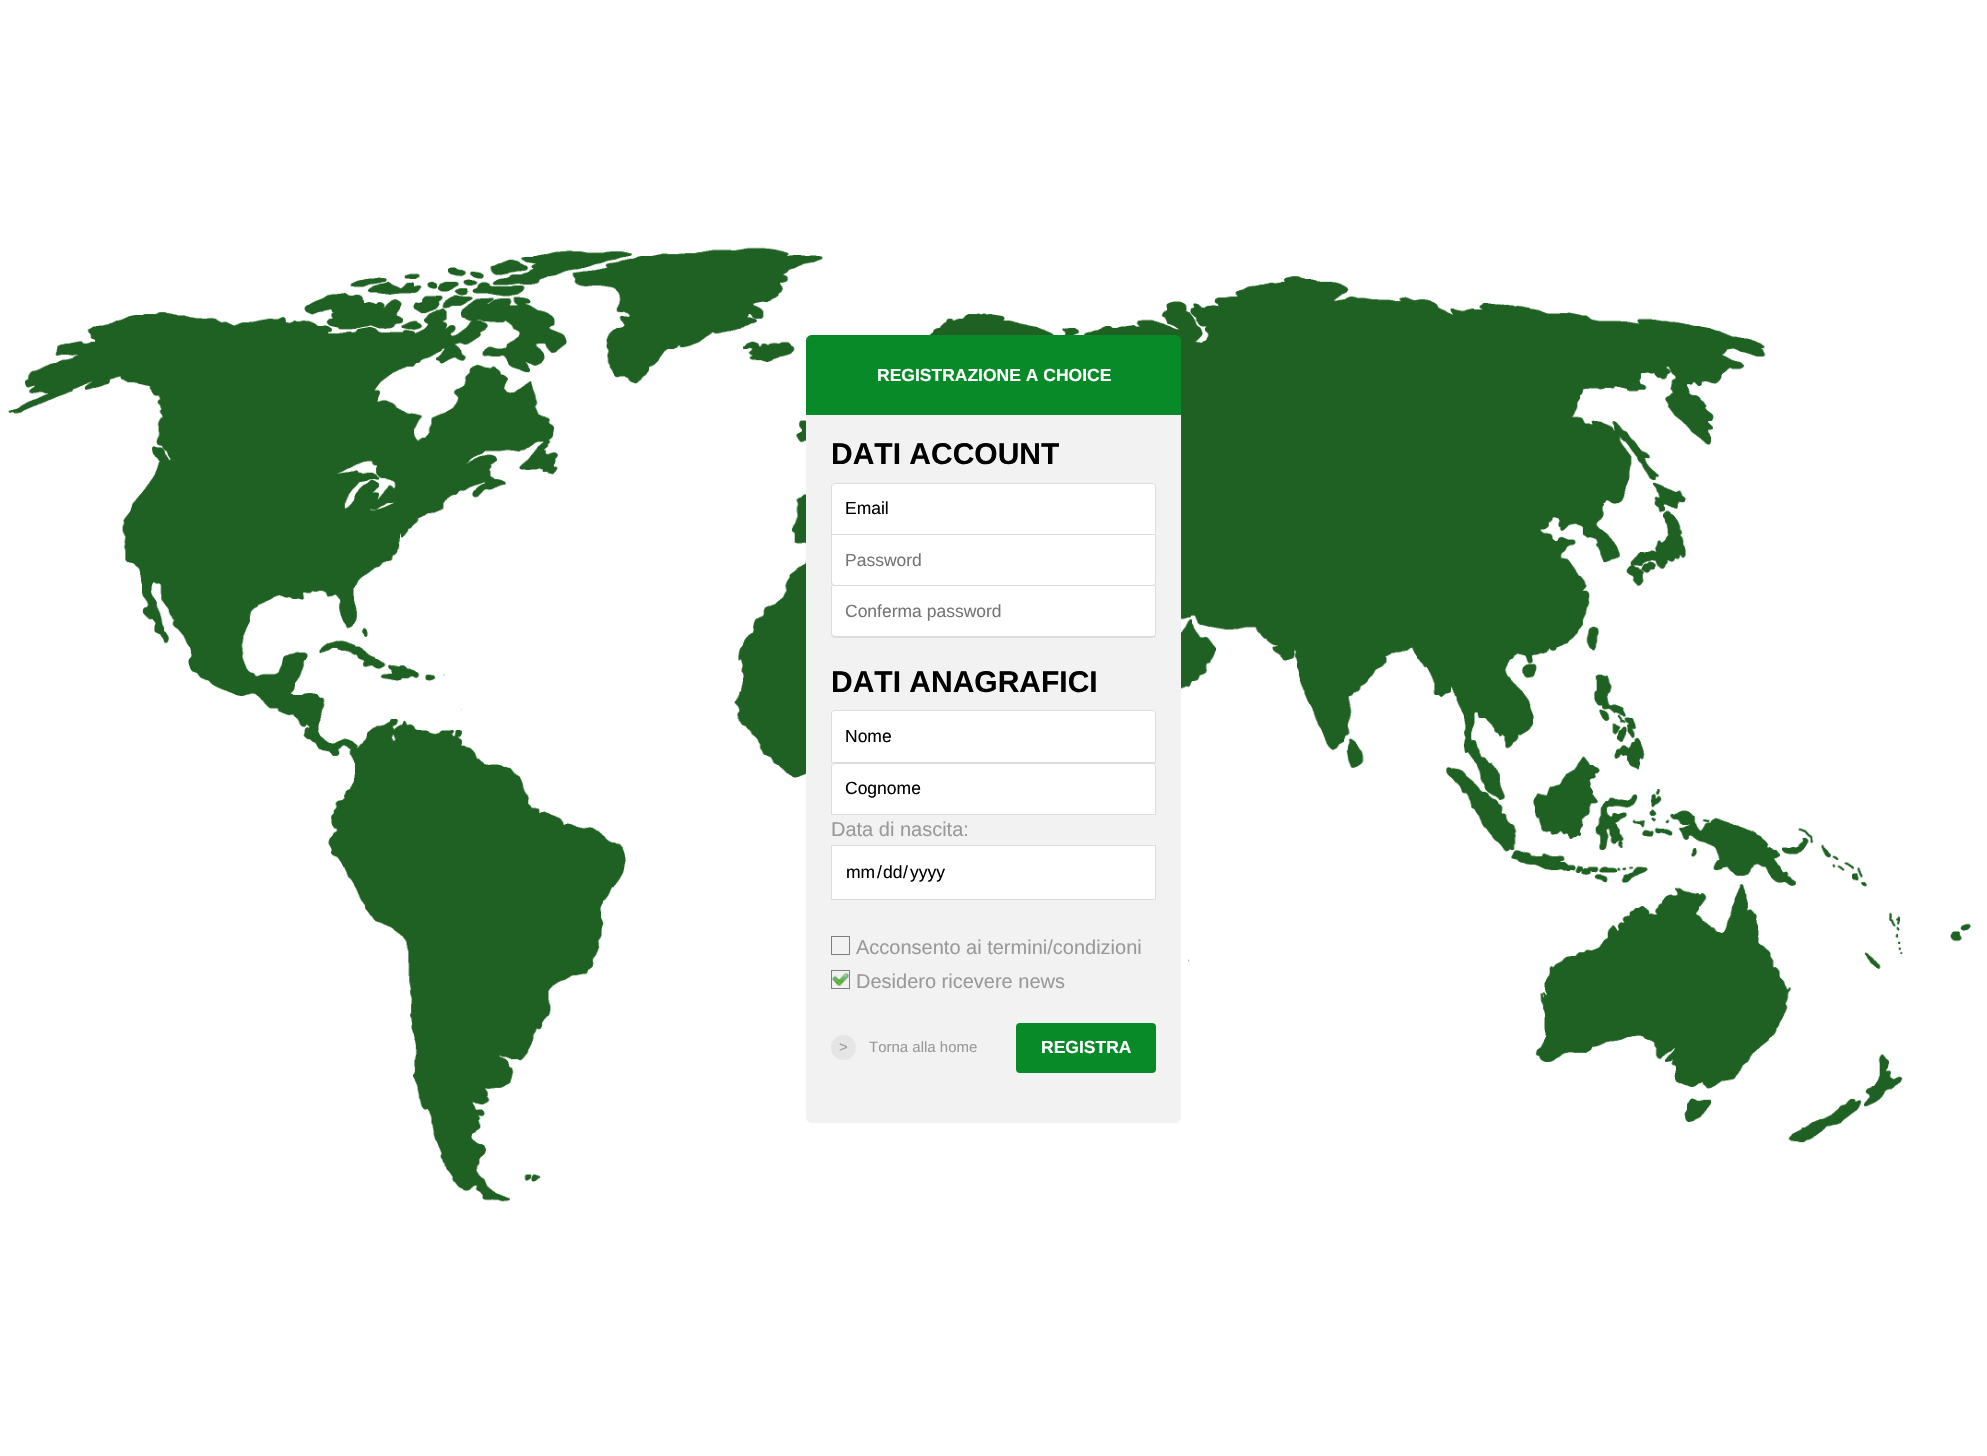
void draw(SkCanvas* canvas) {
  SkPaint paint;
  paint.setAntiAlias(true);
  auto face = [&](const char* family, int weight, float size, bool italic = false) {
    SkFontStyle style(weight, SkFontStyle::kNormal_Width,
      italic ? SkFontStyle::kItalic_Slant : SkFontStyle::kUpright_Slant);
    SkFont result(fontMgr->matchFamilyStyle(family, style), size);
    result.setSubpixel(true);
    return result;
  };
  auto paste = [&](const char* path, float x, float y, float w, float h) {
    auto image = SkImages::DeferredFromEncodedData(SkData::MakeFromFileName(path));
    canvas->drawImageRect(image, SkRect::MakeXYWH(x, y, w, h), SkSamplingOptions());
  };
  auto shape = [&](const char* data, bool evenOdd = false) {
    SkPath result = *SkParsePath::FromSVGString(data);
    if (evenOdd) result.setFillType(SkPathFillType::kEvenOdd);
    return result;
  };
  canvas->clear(0xffffffff);
  paste("img/1.png", 8, 247, 1963, 955);
  paint.setColor(0xff088a29);
  canvas->drawPath(shape("M812 335H1175C1178.5 335 1181 337.5 1181 341V415H806V341C806 337.5 808.5 335 812 335Z"), paint);
  paint.setColor(0xfff2f2f2);
  canvas->drawPath(shape("M806 415H1181V1117C1181 1120.5 1178.5 1123 1175 1123H812C808.5 1123 806 1120.5 806 1117Z"), paint);
  paint.setColor(0xffffffff);
  canvas->drawPath(shape("M835 483.5H1152C1154 483.5 1155.5 485 1155.5 487V534.5H831.5V487C831.5 485 833 483.5 835 483.5Z"), paint);
  paint.setStroke(true);
  paint.setStrokeWidth(1);
  paint.setColor(0xffdcdcdc);
  canvas->drawPath(shape("M835 483.5H1152C1154 483.5 1155.5 485 1155.5 487V534.5H831.5V487C831.5 485 833 483.5 835 483.5Z"), paint);
  paint.setStroke(false);
  paint.setColor(0xffffffff);
  canvas->drawPath(shape("M831 535H1156V582C1156 584 1154 586 1152 586H835C833 586 831 584 831 582Z"), paint);
  paint.setColor(0xffdcdcdc);
  canvas->drawPath(shape("M831 535H1156V582C1156 585 1155 586 1152 586H835C833 586 831 585 831 582ZM832 535H1155V582C1155 584 1154 585 1152 585H835C834 585 832 584 832 582Z", true), paint);
  paint.setColor(0xffffffff);
  canvas->drawPath(shape("M831 586H1156V634C1156 636 1154 638 1152 638H835C833 638 831 636 831 634Z"), paint);
  paint.setColor(0xffdcdcdc);
  canvas->drawPath(shape("M831 586H1156V634C1156 636 1155 638 1152 638H835C833 638 831 636 831 634ZM832 586H1155V634C1155 635 1154 636 1152 636H835C834 636 832 635 832 634Z", true), paint);
  paint.setColor(0xffffffff);
  canvas->drawPath(shape("M835 710.5H1152C1154 710.5 1155.5 712 1155.5 714V762.5H831.5V714C831.5 712 833 710.5 835 710.5Z"), paint);
  paint.setStroke(true);
  paint.setColor(0xffdcdcdc);
  canvas->drawPath(shape("M835 710.5H1152C1154 710.5 1155.5 712 1155.5 714V762.5H831.5V714C831.5 712 833 710.5 835 710.5Z"), paint);
  paint.setStroke(false);
  paint.setColor(0xffffffff);
  canvas->drawPath(shape("M835 763.5H1152C1154 763.5 1155.5 765 1155.5 767V814.5H831.5V767C831.5 765 833 763.5 835 763.5Z"), paint);
  paint.setStroke(true);
  paint.setColor(0xffdcdcdc);
  canvas->drawPath(shape("M835 763.5H1152C1154 763.5 1155.5 765 1155.5 767V814.5H831.5V767C831.5 765 833 763.5 835 763.5Z"), paint);
  paint.setStroke(false);
  paint.setColor(0xffffffff);
  canvas->drawRect(SkRect::MakeXYWH(831.5f, 845.5f, 324, 54), paint);
  paint.setStroke(true);
  paint.setColor(0xffdcdcdc);
  canvas->drawRect(SkRect::MakeXYWH(831.5f, 845.5f, 324, 54), paint);
  paint.setColor(0xff808080);
  canvas->drawRect(SkRect::MakeXYWH(831.5f, 936.5f, 18, 18), paint);
  paste("img/2.png", 832, 973, 17, 13);
  canvas->drawRect(SkRect::MakeXYWH(831.5f, 970.5f, 18, 18), paint);
  paint.setStroke(false);
  paint.setColor(0xffe5e5e5);
  canvas->drawCircle(843.5f, 1047.5f, 12.5f, paint);
  paint.setColor(0xff088a29);
  canvas->drawRoundRect(SkRect::MakeXYWH(1016, 1023, 140, 50), 4, 4, paint);
  auto f0 = face("Liberation Sans", 700, 17.5f);
  paint.setColor(0xffffffff);
  canvas->drawString("REGISTRAZIONE A CHOICE", 877, 381, f0, paint);
  auto f1 = face("Liberation Sans", 700, 30);
  paint.setColor(0xff000000);
  canvas->drawString("DATI ACCOUNT", 831, 464, f1, paint);
  auto f2 = face("Liberation Sans", 400, 17.5f);
  canvas->drawString("Email", 845, 514, f2, paint);
  paint.setColor(0xff757575);
  canvas->drawString("Password", 845, 566, f2, paint);
  canvas->drawString("Conferma password", 845, 617, f2, paint);
  paint.setColor(0xff000000);
  canvas->drawString("DATI ANAGRAFICI", 831, 692, f1, paint);
  canvas->drawString("Nome", 845, 742, f2, paint);
  canvas->drawString("Cognome", 845, 794, f2, paint);
  auto f3 = face("Liberation Sans", 400, 20);
  paint.setColor(0xff999999);
  canvas->drawString("Data di nascita:", 831, 836, f3, paint);
  paint.setColor(0xff000000);
  {
    const struct { const char* s; float x, y; } items[] = {
      {"mm", 846, 878},
      {"/", 877, 878},
      {"dd", 883, 878},
      {"/", 903, 878},
      {"yyyy", 910, 878},
    };
    for (auto [s, x, y] : items) {
      canvas->drawString(s, x, y, f2, paint);
    }
  }
  paint.setColor(0xff999999);
  canvas->drawString("Acconsento ai termini/condizioni", 856, 954, f3, paint);
  canvas->drawString("Desidero ricevere news", 856, 988, f3, paint);
  auto f4 = face("Liberation Sans", 400, 15);
  canvas->drawString(">", 839, 1052, f4, paint);
  canvas->drawString("Torna alla home", 869, 1052, f4, paint);
  paint.setColor(0xffffffff);
  canvas->drawString("REGISTRA", 1041, 1053, f0, paint);
}
